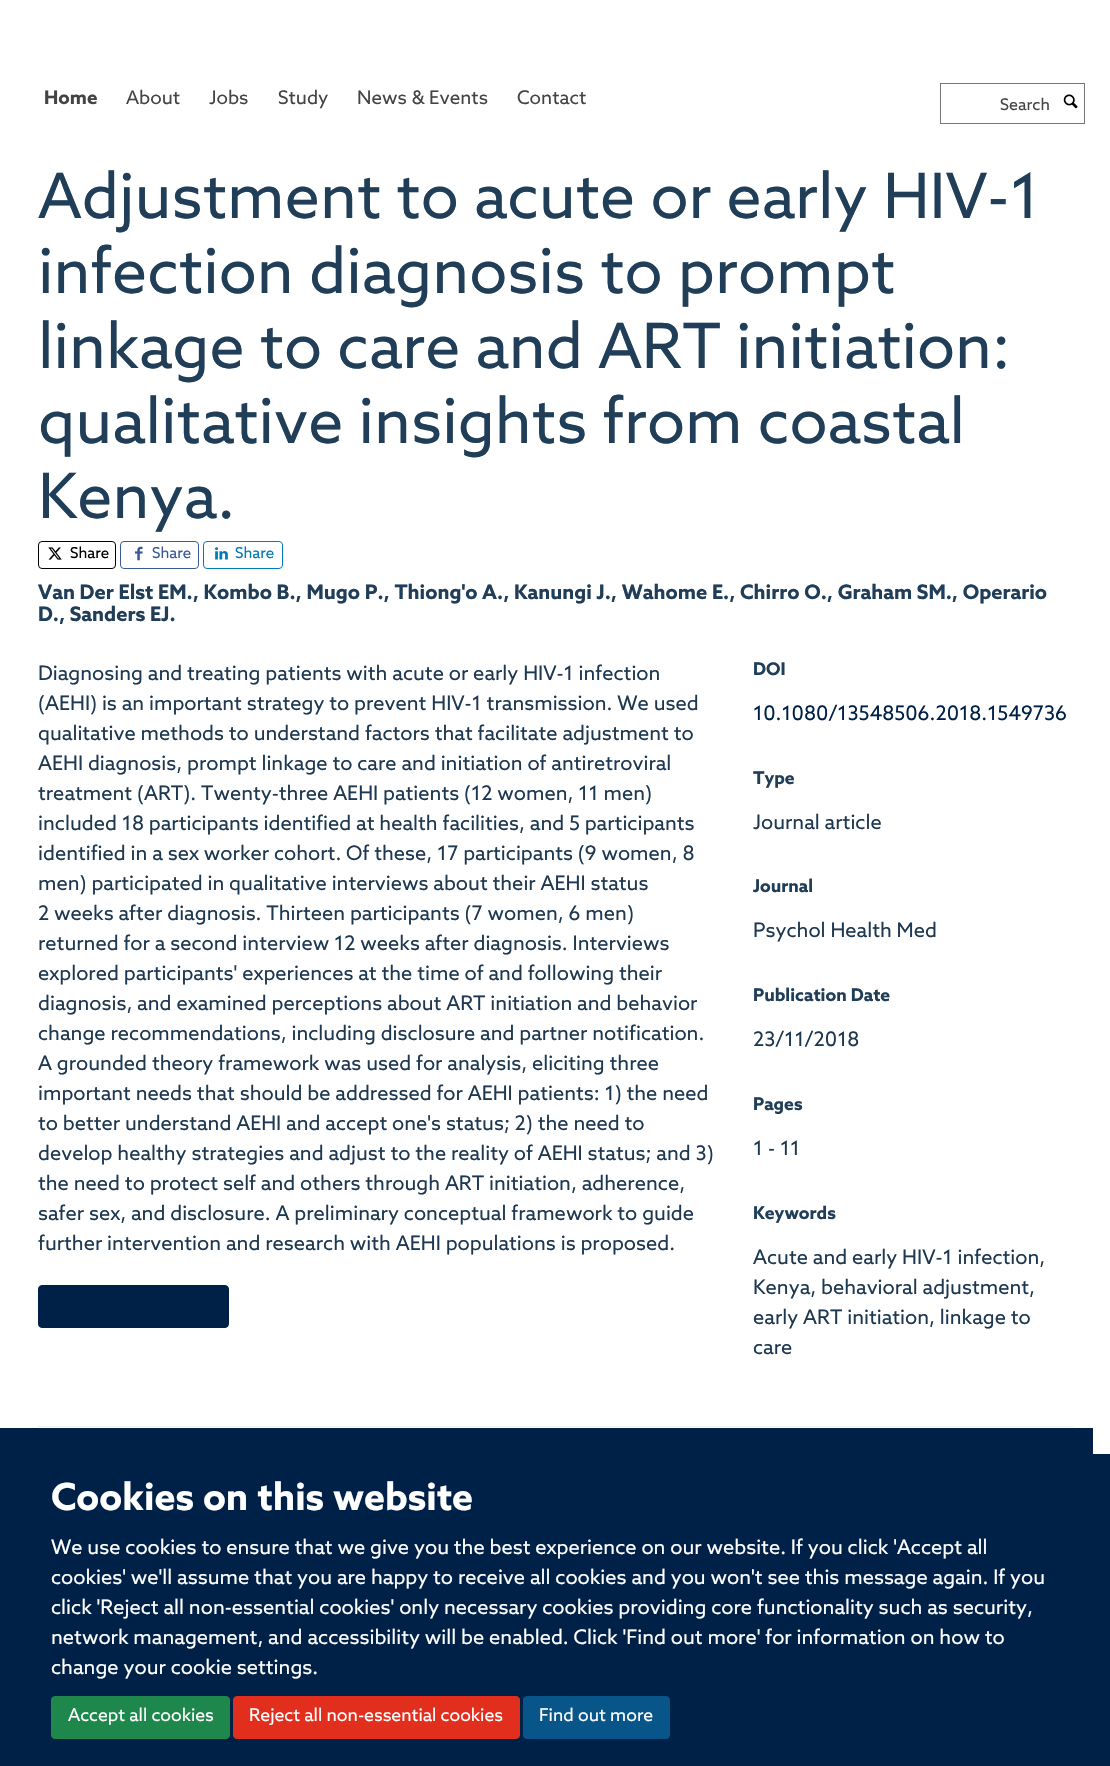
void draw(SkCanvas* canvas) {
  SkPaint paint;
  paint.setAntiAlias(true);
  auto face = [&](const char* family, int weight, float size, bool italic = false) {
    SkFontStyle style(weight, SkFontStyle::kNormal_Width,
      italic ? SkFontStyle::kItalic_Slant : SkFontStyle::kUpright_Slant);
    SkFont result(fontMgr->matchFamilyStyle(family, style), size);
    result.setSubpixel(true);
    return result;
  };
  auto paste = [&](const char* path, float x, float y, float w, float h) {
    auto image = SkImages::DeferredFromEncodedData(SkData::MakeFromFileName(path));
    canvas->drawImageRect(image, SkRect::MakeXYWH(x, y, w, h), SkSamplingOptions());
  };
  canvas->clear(0xffffffff);
  paint.setStroke(true);
  paint.setStrokeWidth(1);
  paint.setColor(0xff777777);
  canvas->drawRect(SkRect::MakeXYWH(940.5f, 83.5f, 144, 40), paint);
  paste("img/1.png", 1063, 94, 15, 15);
  paint.setColor(0xff000000);
  canvas->drawRoundRect(SkRect::MakeXYWH(38.5f, 541.5f, 77, 27), 3.5f, 3.5f, paint);
  paste("img/2.png", 48, 547, 14, 13);
  paint.setColor(0xff3b5998);
  canvas->drawRoundRect(SkRect::MakeXYWH(120.5f, 541.5f, 78, 27), 3.5f, 3.5f, paint);
  paste("img/3.png", 135, 546, 8, 15);
  paint.setColor(0xff007bb6);
  canvas->drawRoundRect(SkRect::MakeXYWH(203.5f, 541.5f, 79, 27), 3.5f, 3.5f, paint);
  paste("img/4.png", 215, 547, 13, 13);
  paint.setStroke(false);
  paint.setColor(0xff002147);
  canvas->drawRoundRect(SkRect::MakeXYWH(38.5f, 1285.5f, 190, 42), 3.5f, 3.5f, paint);
  paint.setStroke(true);
  canvas->drawRoundRect(SkRect::MakeXYWH(38.5f, 1285.5f, 190, 42), 3.5f, 3.5f, paint);
  paint.setStroke(false);
  {
    const struct { float x, y, w, h; SkColor color; } items[] = {
      {38, 1426, 1035, 1, 0xffeeeeee},
      {0, 1428, 1093, 26, 0xff002147},
      {0, 1454, 1110, 312, 0xff002147},
    };
    for (auto [x, y, w, h, color] : items) {
      paint.setColor(color);
      canvas->drawRect(SkRect::MakeXYWH(x, y, w, h), paint);
    }
  }
  paint.setColor(0xff1e874b);
  canvas->drawRoundRect(SkRect::MakeXYWH(51.5f, 1696.5f, 178, 42), 3.5f, 3.5f, paint);
  paint.setStroke(true);
  canvas->drawRoundRect(SkRect::MakeXYWH(51.5f, 1696.5f, 178, 42), 3.5f, 3.5f, paint);
  paint.setStroke(false);
  paint.setColor(0xffe22e1c);
  canvas->drawRoundRect(SkRect::MakeXYWH(233.5f, 1696.5f, 286, 42), 3.5f, 3.5f, paint);
  paint.setStroke(true);
  canvas->drawRoundRect(SkRect::MakeXYWH(233.5f, 1696.5f, 286, 42), 3.5f, 3.5f, paint);
  paint.setStroke(false);
  paint.setColor(0xff085589);
  canvas->drawRoundRect(SkRect::MakeXYWH(523.5f, 1696.5f, 146, 42), 3.5f, 3.5f, paint);
  paint.setStroke(true);
  canvas->drawRoundRect(SkRect::MakeXYWH(523.5f, 1696.5f, 146, 42), 3.5f, 3.5f, paint);
  auto f0 = face("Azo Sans", 700, 18.75f);
  paint.setStroke(false);
  paint.setColor(0xff444444);
  canvas->drawString("Home", 44, 104, f0, paint);
  auto f1 = face("Azo Sans", 400, 18.75f);
  {
    const struct { const char* s; float x, y; } items[] = {
      {"About", 126, 104},
      {"Jobs", 209, 104},
      {"Study", 278, 104},
      {"News & Events", 357, 104},
      {"Contact", 517, 104},
    };
    for (auto [s, x, y] : items) {
      canvas->drawString(s, x, y, f1, paint);
    }
  }
  auto f2 = face("Azo Sans", 400, 16);
  canvas->drawString("Search", 1000, 110, f2, paint);
  auto f3 = face("Azo Sans", 400, 62.5f);
  paint.setColor(0xff203e58);
  {
    const struct { const char* s; float x, y; } items[] = {
      {"Adjustment to acute or early HIV-1", 38, 218},
      {"infection diagnosis to prompt", 38, 293},
      {"linkage to care and ART initiation:", 38, 368},
      {"qualitative insights from coastal", 38, 443},
      {"Kenya.", 38, 518},
    };
    for (auto [s, x, y] : items) {
      canvas->drawString(s, x, y, f3, paint);
    }
  }
  auto f4 = face("Azo Sans", 400, 15);
  paint.setColor(0xff000000);
  canvas->drawString("Share", 70, 558, f4, paint);
  paint.setColor(0xff3b5998);
  canvas->drawString("Share", 152, 558, f4, paint);
  paint.setColor(0xff007bb6);
  canvas->drawString("Share", 235, 558, f4, paint);
  auto f5 = face("Azo Sans", 700, 20);
  paint.setColor(0xff203e58);
  canvas->drawString("Van Der Elst EM., Kombo B., Mugo P., Thiong'o A., Kanungi J., Wahome E., Chirro O., Graham SM., Operario", 38, 599, f5, paint);
  canvas->drawString("D., Sanders EJ.", 38, 621, f5, paint);
  auto f6 = face("Azo Sans", 400, 20);
  paint.setColor(0xff1d3850);
  {
    const struct { const char* s; float x, y; } items[] = {
      {"Diagnosing and treating patients with acute or early HIV-1 infection", 38, 680},
      {"(AEHI) is an important strategy to prevent HIV-1 transmission. We used", 38, 710},
      {"qualitative methods to understand factors that facilitate adjustment to", 38, 740},
      {"AEHI diagnosis, prompt linkage to care and initiation of antiretroviral", 38, 770},
      {"treatment (ART). Twenty-three AEHI patients (12 women, 11 men)", 38, 800},
      {"included 18 participants identified at health facilities, and 5 participants", 38, 830},
      {"identified in a sex worker cohort. Of these, 17 participants (9 women, 8", 38, 860},
      {"men) participated in qualitative interviews about their AEHI status", 38, 890},
      {"2 weeks after diagnosis. Thirteen participants (7 women, 6 men)", 38, 920},
      {"returned for a second interview 12 weeks after diagnosis. Interviews", 38, 950},
      {"explored participants' experiences at the time of and following their", 38, 980},
      {"diagnosis, and examined perceptions about ART initiation and behavior", 38, 1010},
      {"change recommendations, including disclosure and partner notification.", 38, 1040},
      {"A grounded theory framework was used for analysis, eliciting three", 38, 1070},
      {"important needs that should be addressed for AEHI patients: 1) the need", 38, 1100},
      {"to better understand AEHI and accept one's status; 2) the need to", 38, 1130},
      {"develop healthy strategies and adjust to the reality of AEHI status; and 3)", 38, 1160},
      {"the need to protect self and others through ART initiation, adherence,", 38, 1190},
      {"safer sex, and disclosure. A preliminary conceptual framework to guide", 38, 1220},
      {"further intervention and research with AEHI populations is proposed.", 38, 1250},
    };
    for (auto [s, x, y] : items) {
      canvas->drawString(s, x, y, f6, paint);
    }
  }
  auto f7 = face("Azo Sans", 700, 17.5f);
  paint.setColor(0xff203e58);
  canvas->drawString("DOI", 753, 675, f7, paint);
  paint.setColor(0xff002147);
  canvas->drawString("10.1080/13548506.2018.1549736", 753, 720, f6, paint);
  paint.setColor(0xff203e58);
  canvas->drawString("Type", 753, 784, f7, paint);
  paint.setColor(0xff1d3850);
  canvas->drawString("Journal article", 753, 829, f6, paint);
  paint.setColor(0xff203e58);
  canvas->drawString("Journal", 753, 892, f7, paint);
  paint.setColor(0xff1d3850);
  canvas->drawString("Psychol Health Med", 753, 937, f6, paint);
  paint.setColor(0xff203e58);
  canvas->drawString("Publication Date", 753, 1001, f7, paint);
  paint.setColor(0xff1d3850);
  canvas->drawString("23/11/2018", 753, 1046, f6, paint);
  paint.setColor(0xff203e58);
  canvas->drawString("Pages", 753, 1110, f7, paint);
  paint.setColor(0xff1d3850);
  canvas->drawString("1 - 11", 753, 1155, f6, paint);
  paint.setColor(0xff203e58);
  canvas->drawString("Keywords", 753, 1219, f7, paint);
  paint.setColor(0xff1d3850);
  {
    const struct { const char* s; float x, y; } items[] = {
      {"Acute and early HIV-1 infection,", 753, 1264},
      {"Kenya, behavioral adjustment,", 753, 1294},
      {"early ART initiation, linkage to", 753, 1324},
      {"care", 753, 1354},
    };
    for (auto [s, x, y] : items) {
      canvas->drawString(s, x, y, f6, paint);
    }
  }
  auto f8 = face("Azo Sans", 700, 37.5f);
  paint.setColor(0xffffffff);
  canvas->drawString("Cookies on this website", 51, 1510, f8, paint);
  {
    const struct { const char* s; float x, y; } items[] = {
      {"We use cookies to ensure that we give you the best experience on our website. If you click 'Accept all", 51, 1554},
      {"cookies' we'll assume that you are happy to receive all cookies and you won't see this message again. If you", 51, 1584},
      {"click 'Reject all non-essential cookies' only necessary cookies providing core functionality such as security,", 51, 1614},
      {"network management, and accessibility will be enabled. Click 'Find out more' for information on how to", 51, 1644},
      {"change your cookie settings.", 51, 1674},
    };
    for (auto [s, x, y] : items) {
      canvas->drawString(s, x, y, f6, paint);
    }
  }
  auto f9 = face("Azo Sans", 400, 17.5f);
  {
    const struct { const char* s; float x, y; } items[] = {
      {"Accept all cookies", 68, 1721},
      {"Reject all non-essential cookies", 249, 1721},
      {"Find out more", 539, 1721},
    };
    for (auto [s, x, y] : items) {
      canvas->drawString(s, x, y, f9, paint);
    }
  }
}
